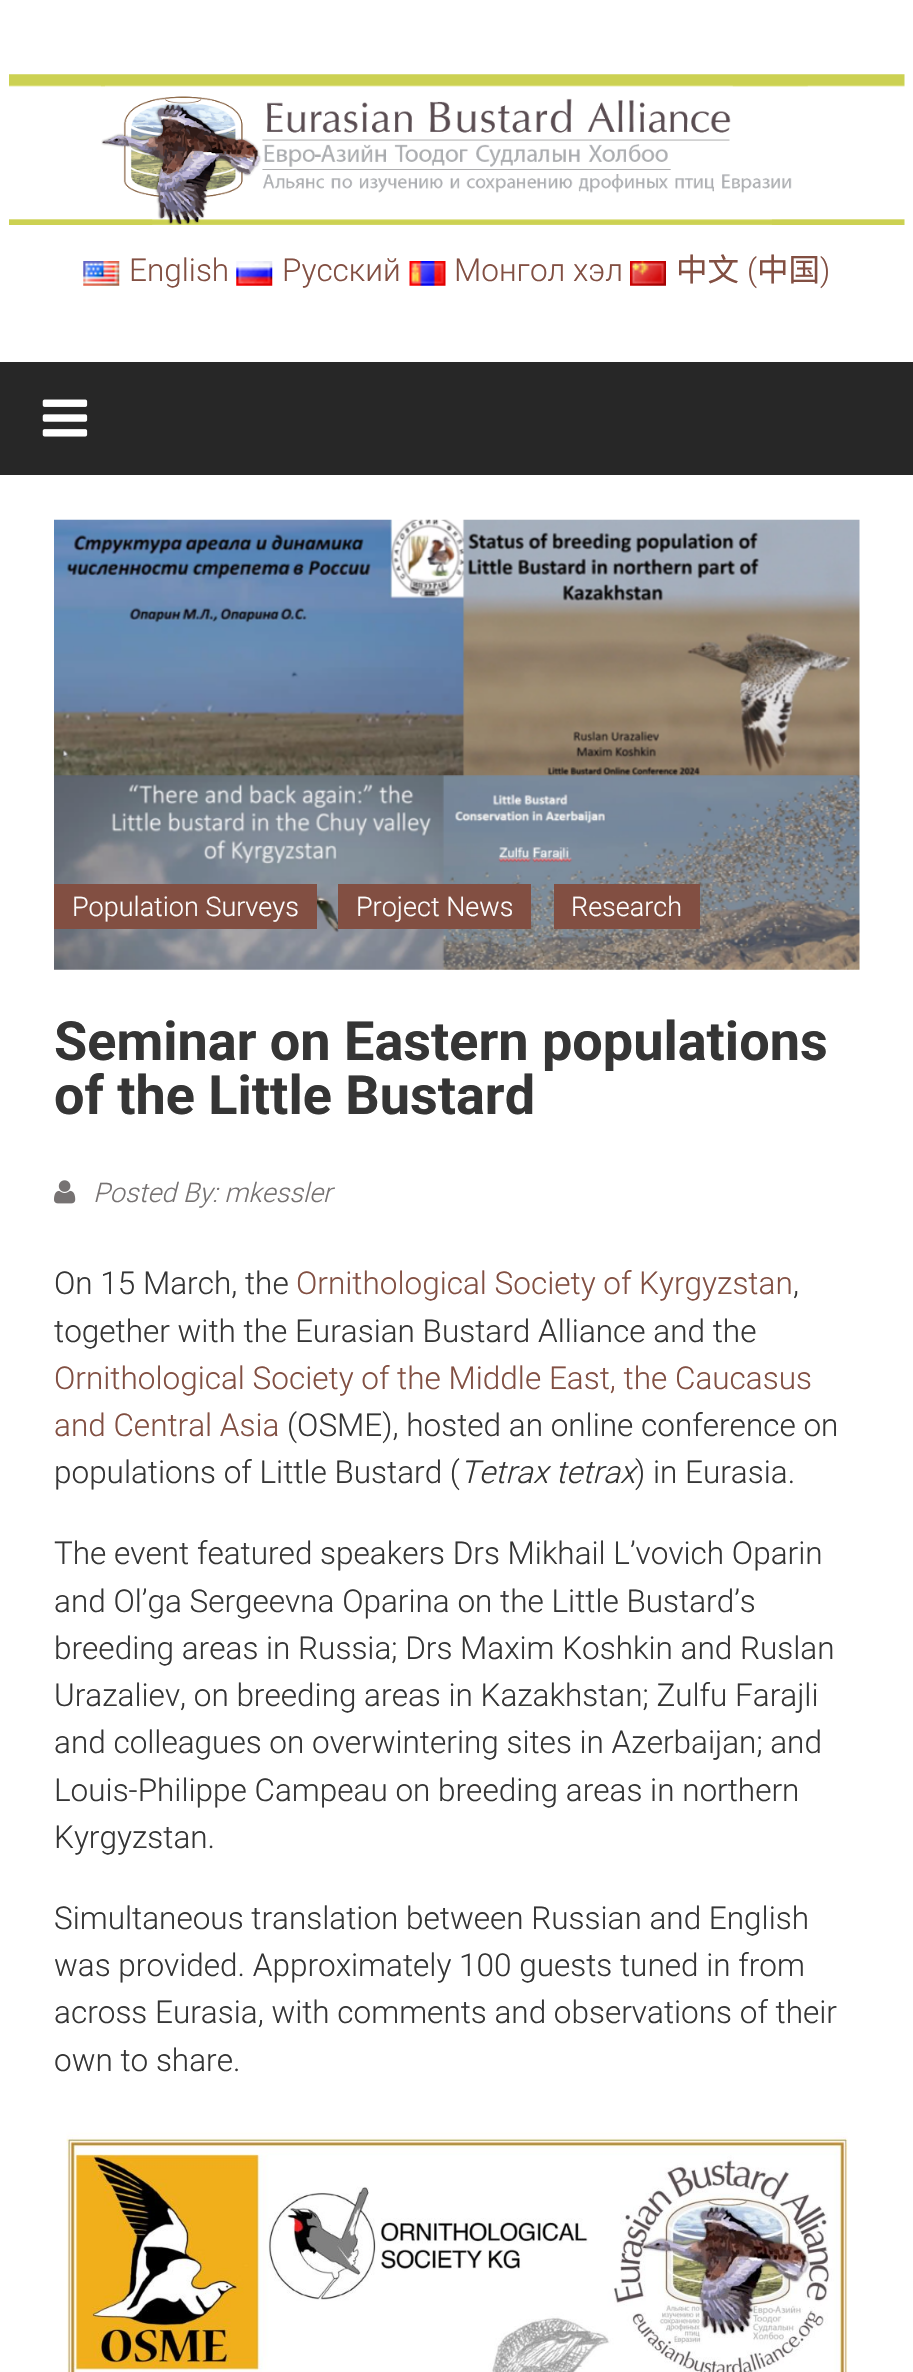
void draw(SkCanvas* canvas) {
  SkPaint paint;
  paint.setAntiAlias(true);
  auto face = [&](const char* family, int weight, float size, bool italic = false) {
    SkFontStyle style(weight, SkFontStyle::kNormal_Width,
      italic ? SkFontStyle::kItalic_Slant : SkFontStyle::kUpright_Slant);
    SkFont result(fontMgr->matchFamilyStyle(family, style), size);
    result.setSubpixel(true);
    return result;
  };
  auto paste = [&](const char* path, float x, float y, float w, float h) {
    auto image = SkImages::DeferredFromEncodedData(SkData::MakeFromFileName(path));
    canvas->drawImageRect(image, SkRect::MakeXYWH(x, y, w, h), SkSamplingOptions());
  };
  canvas->clear(0xffffffff);
  paste("img/1.png", 9, 74, 896, 151);
  paste("img/2.png", 83, 261, 37, 25);
  paste("img/3.png", 236, 261, 37, 25);
  paste("img/4.png", 409, 261, 37, 25);
  paste("img/5.png", 630, 261, 36, 25);
  paint.setColor(0xff272727);
  canvas->drawRect(SkRect::MakeXYWH(0, 362, 913, 113), paint);
  paste("img/6.png", 42, 399, 46, 38);
  paste("img/7.png", 54, 519, 806, 451);
  {
    const struct { float x, y, w, h; SkColor color; } items[] = {
      {54, 884, 263, 45, 0xff824f42},
      {338, 884, 193, 45, 0xff824f42},
      {554, 884, 146, 45, 0xff824f42},
    };
    for (auto [x, y, w, h, color] : items) {
      paint.setColor(color);
      canvas->drawRect(SkRect::MakeXYWH(x, y, w, h), paint);
    }
  }
  paste("img/8.png", 54, 1180, 22, 24);
  paste("img/9.png", 66, 2132, 782, 240);
  auto f0 = face("Roboto", 300, 31.5f);
  {
    const struct { const char* s; float x, y; } items[] = {
      {"English", 129, 281},
      {"Русский", 282, 281},
      {"Монгол хэл", 454, 281},
    };
    for (auto [s, x, y] : items) {
      canvas->drawString(s, x, y, f0, paint);
    }
  }
  auto f1 = face("Noto Sans CJK SC", 400, 31.5f);
  canvas->drawString("中文", 676, 281, f1, paint);
  canvas->drawString("(", 747, 281, f0, paint);
  canvas->drawString("中国", 757, 281, f1, paint);
  canvas->drawString(")", 820, 281, f0, paint);
  auto f2 = face("Roboto", 300, 27);
  paint.setColor(0xffffffff);
  {
    const struct { const char* s; float x, y; } items[] = {
      {"Population Surveys", 72, 916},
      {"Project News", 356, 916},
      {"Research", 571, 916},
    };
    for (auto [s, x, y] : items) {
      canvas->drawString(s, x, y, f2, paint);
    }
  }
  auto f3 = face("Roboto", 700, 54);
  paint.setColor(0xff353535);
  canvas->drawString("Seminar on Eastern populations", 54, 1060, f3, paint);
  canvas->drawString("of the Little Bustard", 54, 1114, f3, paint);
  auto f4 = face("Roboto", 300, 27, true);
  paint.setColor(0xff767272);
  canvas->drawString("Posted By: mkessler", 93, 1202, f4, paint);
  paint.setColor(0xff353535);
  canvas->drawString("On 15 March, the", 54, 1294, f0, paint);
  paint.setColor(0xff824f42);
  canvas->drawString("Ornithological Society of Kyrgyzstan", 296, 1294, f0, paint);
  paint.setColor(0xff353535);
  canvas->drawString(",", 793, 1294, f0, paint);
  canvas->drawString("together with the Eurasian Bustard Alliance and the", 54, 1342, f0, paint);
  paint.setColor(0xff824f42);
  canvas->drawString("Ornithological Society of the Middle East, the Caucasus", 54, 1389, f0, paint);
  canvas->drawString("and Central Asia", 54, 1436, f0, paint);
  paint.setColor(0xff353535);
  canvas->drawString("(OSME), hosted an online conference on", 287, 1436, f0, paint);
  canvas->drawString("populations of Little Bustard (", 54, 1483, f0, paint);
  auto f5 = face("Roboto", 300, 31.5f, true);
  canvas->drawString("Tetrax tetrax", 460, 1483, f5, paint);
  {
    const struct { const char* s; float x, y; } items[] = {
      {") in Eurasia.", 635, 1483},
      {"The event featured speakers Drs Mikhail L’vovich Oparin", 54, 1564},
      {"and Ol’ga Sergeevna Oparina on the Little Bustard’s", 54, 1612},
      {"breeding areas in Russia; Drs Maxim Koshkin and Ruslan", 54, 1659},
      {"Urazaliev, on breeding areas in Kazakhstan; Zulfu Farajli", 54, 1706},
      {"and colleagues on overwintering sites in Azerbaijan; and", 54, 1753},
      {"Louis-Philippe Campeau on breeding areas in northern", 54, 1801},
      {"Kyrgyzstan.", 54, 1848},
      {"Simultaneous translation between Russian and English", 54, 1929},
      {"was provided. Approximately 100 guests tuned in from", 54, 1976},
      {"across Eurasia, with comments and observations of their", 54, 2023},
      {"own to share.", 54, 2071},
    };
    for (auto [s, x, y] : items) {
      canvas->drawString(s, x, y, f0, paint);
    }
  }
}
